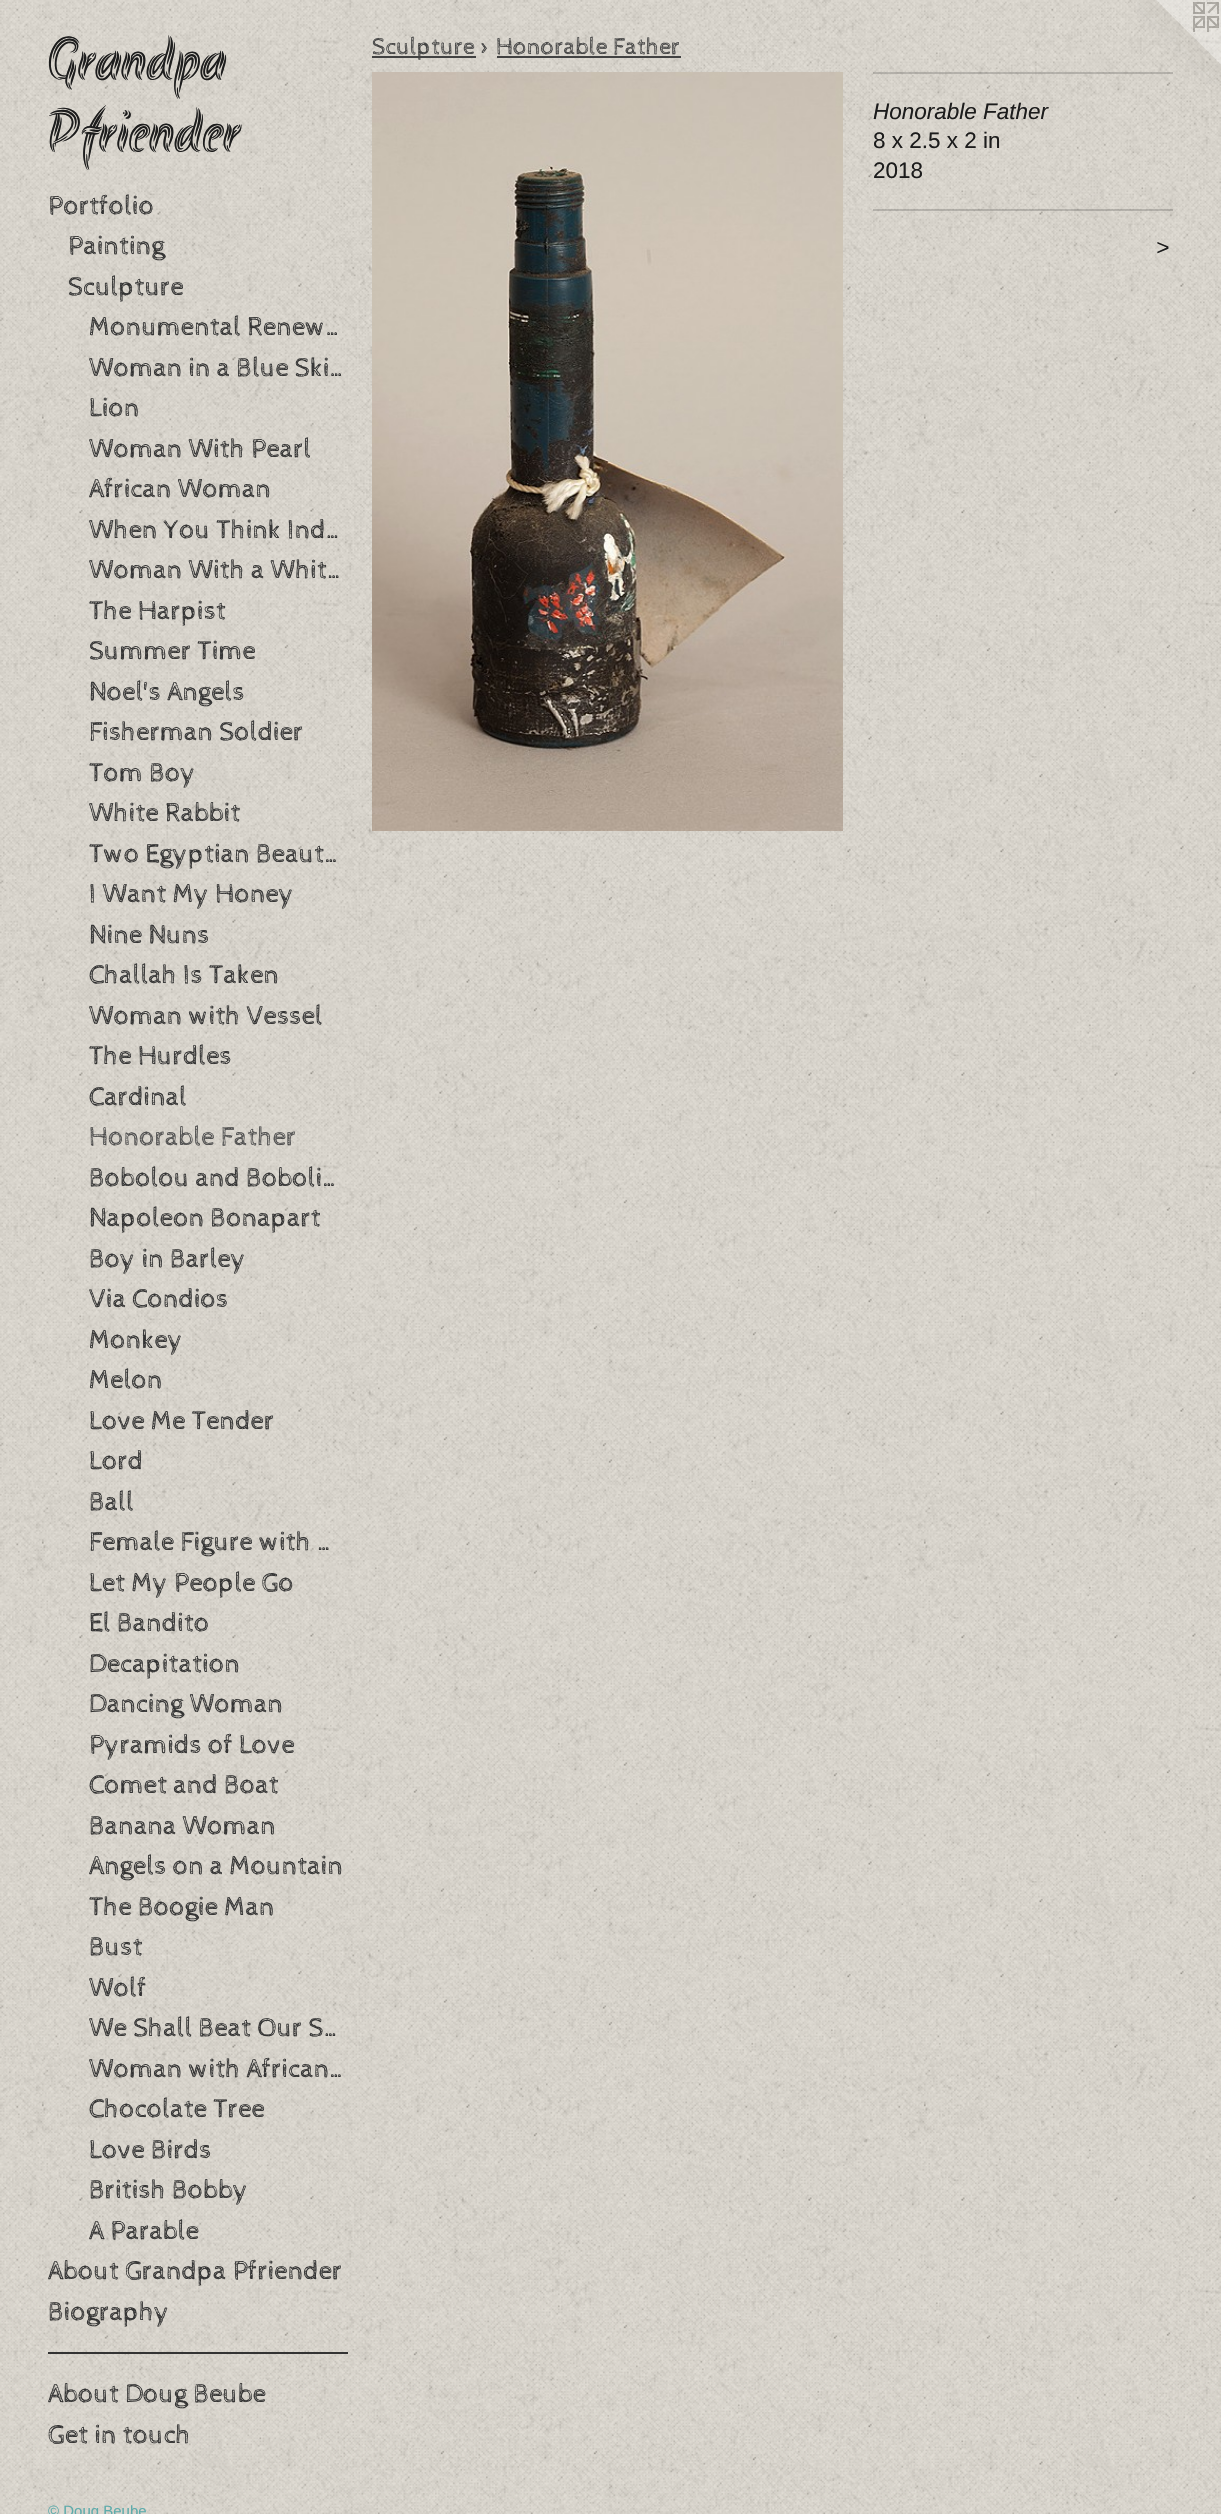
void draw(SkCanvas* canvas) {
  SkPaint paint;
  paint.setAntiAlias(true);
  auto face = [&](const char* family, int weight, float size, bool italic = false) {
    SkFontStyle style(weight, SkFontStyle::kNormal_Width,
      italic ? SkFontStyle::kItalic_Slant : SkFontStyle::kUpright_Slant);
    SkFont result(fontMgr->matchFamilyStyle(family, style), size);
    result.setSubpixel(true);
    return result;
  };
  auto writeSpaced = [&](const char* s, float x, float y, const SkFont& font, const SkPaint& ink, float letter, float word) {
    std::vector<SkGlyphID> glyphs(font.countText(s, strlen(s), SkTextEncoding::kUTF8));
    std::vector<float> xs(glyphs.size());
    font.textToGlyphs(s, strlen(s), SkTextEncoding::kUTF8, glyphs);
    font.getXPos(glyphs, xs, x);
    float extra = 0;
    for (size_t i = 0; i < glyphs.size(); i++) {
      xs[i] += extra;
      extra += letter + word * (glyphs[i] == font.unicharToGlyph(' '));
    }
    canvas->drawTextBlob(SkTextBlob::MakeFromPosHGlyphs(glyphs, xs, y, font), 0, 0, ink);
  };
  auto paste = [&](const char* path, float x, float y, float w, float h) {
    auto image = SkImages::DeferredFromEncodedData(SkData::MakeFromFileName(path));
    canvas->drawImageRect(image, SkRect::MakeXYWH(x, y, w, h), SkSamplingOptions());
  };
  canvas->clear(0xffffffff);
  paste("img/1.png", 0, 0, 1221, 2514);
  {
    const struct { float x, y, w, h; SkColor color; } items[] = {
      {48, 2352, 300, 2, 0xff333333},
      {372, 56, 104, 2, 0xff424242},
      {497, 56, 184, 2, 0xff424242},
    };
    for (auto [x, y, w, h, color] : items) {
      paint.setColor(color);
      canvas->drawRect(SkRect::MakeXYWH(x, y, w, h), paint);
    }
  }
  paste("img/2.png", 372, 72, 471, 759);
  paste("img/3.png", 1137, 0, 84, 84);
  paint.setColor(0x331f1e1e);
  canvas->drawRect(SkRect::MakeXYWH(873, 72, 300, 2), paint);
  canvas->drawRect(SkRect::MakeXYWH(873, 209, 300, 2), paint);
  auto f0 = face("Akronim", 400, 60);
  paint.setColor(0xff1c1c1c);
  canvas->drawString("Grandpa", 48, 80, f0, paint);
  canvas->drawString("Pfriender", 48, 152, f0, paint);
  auto f1 = face("Cabin Sketch", 400, 27);
  paint.setColor(0xff333333);
  {
    const struct { const char* s; float x, y; } items[] = {
      {"Portfolio", 48, 214},
      {"Painting", 68, 254},
      {"Sculpture", 68, 295},
      {"Monumental Renew…", 89, 335},
      {"Woman in a Blue Ski…", 89, 376},
      {"Lion", 89, 416},
      {"Woman With Pearl", 89, 457},
      {"African Woman", 89, 497},
      {"When You Think Ind…", 89, 538},
      {"Woman With a Whit…", 89, 578},
      {"The Harpist", 89, 619},
      {"Summer Time", 89, 659},
      {"Noel's Angels", 89, 700},
      {"Fisherman Soldier", 89, 740},
      {"Tom Boy", 89, 781},
      {"White Rabbit", 89, 821},
      {"Two Egyptian Beaut…", 89, 862},
      {"I Want My Honey", 89, 902},
      {"Nine Nuns", 89, 943},
      {"Challah Is Taken", 89, 983},
      {"Woman with Vessel", 89, 1024},
      {"The Hurdles", 89, 1064},
      {"Cardinal", 89, 1105},
    };
    for (auto [s, x, y] : items) {
      canvas->drawString(s, x, y, f1, paint);
    }
  }
  paint.setColor(0xff4d4d4d);
  canvas->drawString("Honorable Father", 89, 1145, f1, paint);
  paint.setColor(0xff333333);
  {
    const struct { const char* s; float x, y; } items[] = {
      {"Bobolou and Boboli…", 89, 1186},
      {"Napoleon Bonapart", 89, 1226},
      {"Boy in Barley", 89, 1267},
      {"Via Condios", 89, 1307},
      {"Monkey", 89, 1348},
      {"Melon", 89, 1388},
      {"Love Me Tender", 89, 1429},
      {"Lord", 89, 1469},
      {"Ball", 89, 1510},
      {"Female Figure with …", 89, 1550},
      {"Let My People Go", 89, 1591},
      {"El Bandito", 89, 1631},
      {"Decapitation", 89, 1672},
      {"Dancing Woman", 89, 1712},
      {"Pyramids of Love", 89, 1753},
      {"Comet and Boat", 89, 1793},
      {"Banana Woman", 89, 1834},
      {"Angels on a Mountain", 89, 1874},
      {"The Boogie Man", 89, 1915},
      {"Bust", 89, 1955},
      {"Wolf", 89, 1996},
      {"We Shall Beat Our S…", 89, 2036},
      {"Woman with African…", 89, 2077},
      {"Chocolate Tree", 89, 2117},
      {"Love Birds", 89, 2158},
      {"British Bobby", 89, 2198},
      {"A Parable", 89, 2239},
      {"About Grandpa Pfriender", 48, 2279},
      {"Biography", 48, 2320},
      {"About Doug Beube", 48, 2402},
      {"Get in touch", 48, 2443},
    };
    for (auto [s, x, y] : items) {
      canvas->drawString(s, x, y, f1, paint);
    }
  }
  auto f2 = face("Liberation Sans", 400, 15);
  paint.setColor(0xff5dabab);
  canvas->drawString("© Doug Beube", 48, 2516, f2, paint);
  auto f3 = face("Cabin Sketch", 400, 24);
  paint.setColor(0xff424242);
  canvas->drawString("Sculpture > Honorable Father", 372, 54, f3, paint);
  auto f4 = face("Liberation Sans", 400, 22.5f, true);
  paint.setColor(0xff1c1c1c);
  canvas->drawString("Honorable Father", 873, 119, f4, paint);
  auto f5 = face("Liberation Sans", 400, 22.5f);
  canvas->drawString("8 x 2.5 x 2 in", 873, 148, f5, paint);
  canvas->drawString("2018", 873, 178, f5, paint);
  writeSpaced(">", 1156, 255, f4, paint, 2, 0);
}
